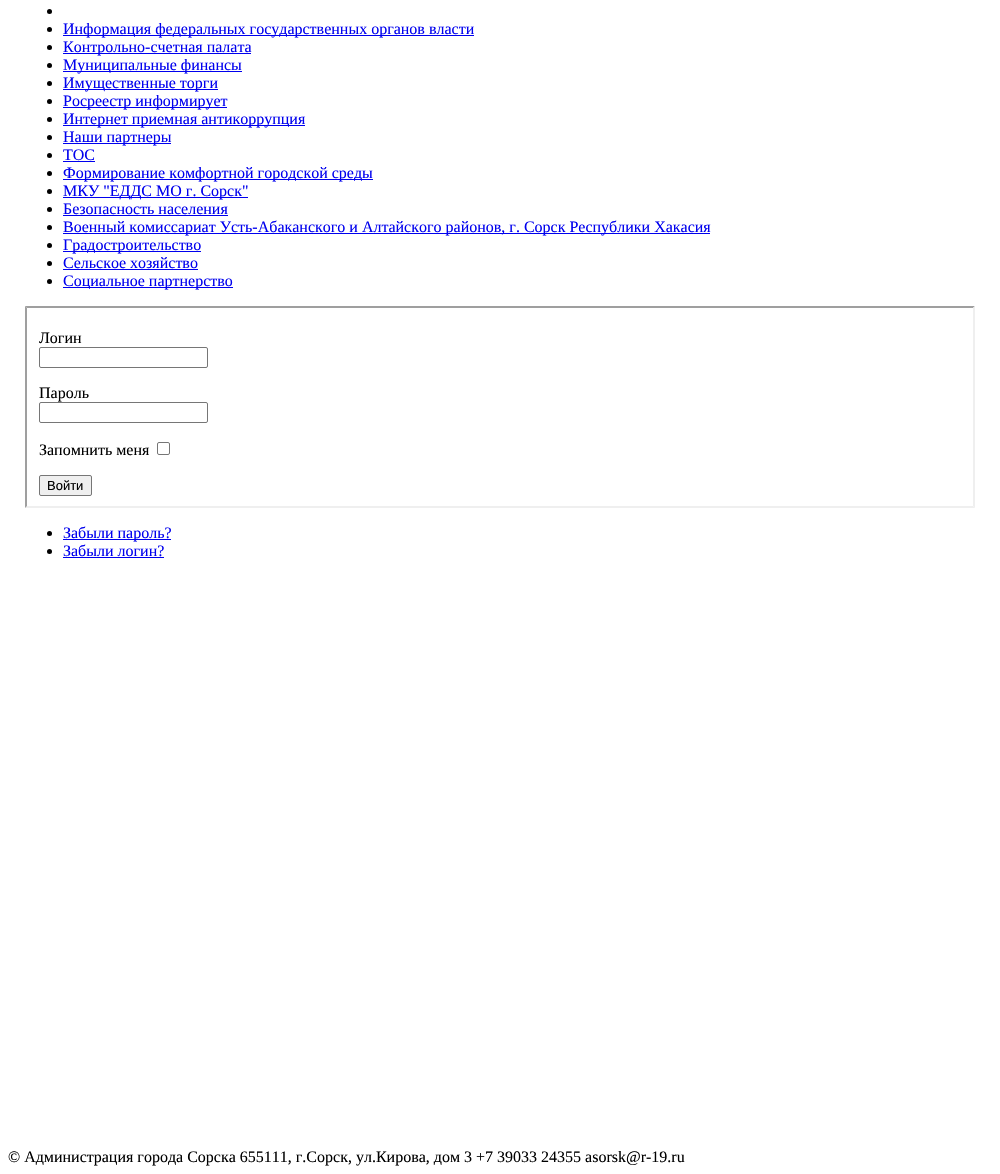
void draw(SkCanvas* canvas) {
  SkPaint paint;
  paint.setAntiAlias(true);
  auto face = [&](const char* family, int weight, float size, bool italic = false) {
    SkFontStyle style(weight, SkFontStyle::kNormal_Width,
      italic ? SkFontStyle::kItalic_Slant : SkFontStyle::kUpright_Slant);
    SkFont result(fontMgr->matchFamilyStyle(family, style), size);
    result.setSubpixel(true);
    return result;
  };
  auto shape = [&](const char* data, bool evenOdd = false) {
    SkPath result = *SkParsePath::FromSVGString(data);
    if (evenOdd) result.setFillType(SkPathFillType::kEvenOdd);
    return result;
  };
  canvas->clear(0xffffffff);
  paint.setColor(0xff000000);
  canvas->drawCircle(49.5f, 11.5f, 2.5f, paint);
  canvas->drawCircle(49.5f, 29.5f, 2.5f, paint);
  paint.setColor(0xff0000ee);
  canvas->drawRect(SkRect::MakeXYWH(63, 35, 411, 1), paint);
  paint.setColor(0xff000000);
  canvas->drawCircle(49.5f, 47.5f, 2.5f, paint);
  paint.setColor(0xff0000ee);
  canvas->drawRect(SkRect::MakeXYWH(63, 53, 188, 1), paint);
  paint.setColor(0xff000000);
  canvas->drawCircle(49.5f, 65.5f, 2.5f, paint);
  paint.setColor(0xff0000ee);
  canvas->drawRect(SkRect::MakeXYWH(63, 71, 179, 1), paint);
  paint.setColor(0xff000000);
  canvas->drawCircle(49.5f, 83.5f, 2.5f, paint);
  paint.setColor(0xff0000ee);
  canvas->drawRect(SkRect::MakeXYWH(63, 89, 155, 1), paint);
  paint.setColor(0xff000000);
  canvas->drawCircle(49.5f, 101.5f, 2.5f, paint);
  paint.setColor(0xff0000ee);
  canvas->drawRect(SkRect::MakeXYWH(63, 107, 164, 1), paint);
  paint.setColor(0xff000000);
  canvas->drawCircle(49.5f, 119.5f, 2.5f, paint);
  paint.setColor(0xff0000ee);
  canvas->drawRect(SkRect::MakeXYWH(63, 125, 242, 1), paint);
  paint.setColor(0xff000000);
  canvas->drawCircle(49.5f, 137.5f, 2.5f, paint);
  paint.setColor(0xff0000ee);
  canvas->drawRect(SkRect::MakeXYWH(63, 143, 108, 1), paint);
  paint.setColor(0xff000000);
  canvas->drawCircle(49.5f, 155.5f, 2.5f, paint);
  paint.setColor(0xff0000ee);
  canvas->drawRect(SkRect::MakeXYWH(63, 161, 32, 1), paint);
  paint.setColor(0xff000000);
  canvas->drawCircle(49.5f, 173.5f, 2.5f, paint);
  paint.setColor(0xff0000ee);
  canvas->drawRect(SkRect::MakeXYWH(63, 179, 310, 1), paint);
  paint.setColor(0xff000000);
  canvas->drawCircle(49.5f, 191.5f, 2.5f, paint);
  paint.setColor(0xff0000ee);
  canvas->drawRect(SkRect::MakeXYWH(63, 197, 185, 1), paint);
  paint.setColor(0xff000000);
  canvas->drawCircle(49.5f, 209.5f, 2.5f, paint);
  paint.setColor(0xff0000ee);
  canvas->drawRect(SkRect::MakeXYWH(63, 215, 165, 1), paint);
  paint.setColor(0xff000000);
  canvas->drawCircle(49.5f, 227.5f, 2.5f, paint);
  paint.setColor(0xff0000ee);
  canvas->drawRect(SkRect::MakeXYWH(63, 233, 647, 1), paint);
  paint.setColor(0xff000000);
  canvas->drawCircle(49.5f, 245.5f, 2.5f, paint);
  paint.setColor(0xff0000ee);
  canvas->drawRect(SkRect::MakeXYWH(63, 251, 138, 1), paint);
  paint.setColor(0xff000000);
  canvas->drawCircle(49.5f, 263.5f, 2.5f, paint);
  paint.setColor(0xff0000ee);
  canvas->drawRect(SkRect::MakeXYWH(63, 269, 135, 1), paint);
  paint.setColor(0xff000000);
  canvas->drawCircle(49.5f, 281.5f, 2.5f, paint);
  paint.setColor(0xff0000ee);
  canvas->drawRect(SkRect::MakeXYWH(63, 287, 170, 1), paint);
  paint.setColor(0xff9f9f9f);
  canvas->drawPath(shape("M25 306H975L973 308H27Z"), paint);
  paint.setColor(0xffefefef);
  canvas->drawPath(shape("M975 306V508L973 506V308Z"), paint);
  canvas->drawPath(shape("M975 508H25L27 506H973Z"), paint);
  paint.setColor(0xff9f9f9f);
  canvas->drawPath(shape("M25 508V306L27 308V506Z"), paint);
  paint.setStroke(true);
  paint.setStrokeWidth(1);
  paint.setColor(0xff767676);
  canvas->drawRoundRect(SkRect::MakeXYWH(39.5f, 347.5f, 168, 20), 1.5f, 1.5f, paint);
  canvas->drawRoundRect(SkRect::MakeXYWH(39.5f, 402.5f, 168, 20), 1.5f, 1.5f, paint);
  canvas->drawRoundRect(SkRect::MakeXYWH(157.5f, 442.5f, 12, 12), 1.5f, 1.5f, paint);
  paint.setStroke(false);
  paint.setColor(0xffefefef);
  canvas->drawRoundRect(SkRect::MakeXYWH(39.5f, 475.5f, 52, 20), 1.5f, 1.5f, paint);
  paint.setStroke(true);
  paint.setColor(0xff767676);
  canvas->drawRoundRect(SkRect::MakeXYWH(39.5f, 475.5f, 52, 20), 1.5f, 1.5f, paint);
  paint.setStroke(false);
  paint.setColor(0xff000000);
  canvas->drawCircle(49.5f, 533.5f, 2.5f, paint);
  paint.setColor(0xff0000ee);
  canvas->drawRect(SkRect::MakeXYWH(63, 539, 108, 1), paint);
  paint.setColor(0xff000000);
  canvas->drawCircle(49.5f, 551.5f, 2.5f, paint);
  paint.setColor(0xff0000ee);
  canvas->drawRect(SkRect::MakeXYWH(63, 557, 101, 1), paint);
  auto f0 = face("Liberation Serif", 400, 16);
  {
    const struct { const char* s; float x, y; } items[] = {
      {"Информация федеральных государственных органов власти", 63, 34},
      {"Контрольно-счетная палата", 63, 52},
      {"Муниципальные финансы", 63, 70},
      {"Имущественные торги", 63, 88},
      {"Росреестр информирует", 63, 106},
      {"Интернет приемная антикоррупция", 63, 124},
      {"Наши партнеры", 63, 142},
      {"ТОС", 63, 160},
      {"Формирование комфортной городской среды", 63, 178},
      {"МКУ \"ЕДДС МО г. Сорск\"", 63, 196},
      {"Безопасность населения", 63, 214},
      {"Военный комиссариат Усть-Абаканского и Алтайского районов, г. Сорск Республики Хакасия", 63, 232},
      {"Градостроительство", 63, 250},
      {"Сельское хозяйство", 63, 268},
      {"Социальное партнерство", 63, 286},
    };
    for (auto [s, x, y] : items) {
      canvas->drawString(s, x, y, f0, paint);
    }
  }
  paint.setColor(0xff000000);
  {
    const struct { const char* s; float x, y; } items[] = {
      {"Логин", 39, 343},
      {"Пароль", 39, 398},
      {"Запомнить меня", 39, 455},
    };
    for (auto [s, x, y] : items) {
      canvas->drawString(s, x, y, f0, paint);
    }
  }
  auto f1 = face("Liberation Sans", 400, 13);
  canvas->drawString("Войти", 47, 490, f1, paint);
  paint.setColor(0xff0000ee);
  canvas->drawString("Забыли пароль?", 63, 538, f0, paint);
  canvas->drawString("Забыли логин?", 63, 556, f0, paint);
  paint.setColor(0xff000000);
  canvas->drawString("© Администрация города Сорска 655111, г.Сорск, ул.Кирова, дом 3 +7 39033 24355 asorsk@r-19.ru", 8, 1162, f0, paint);
}
